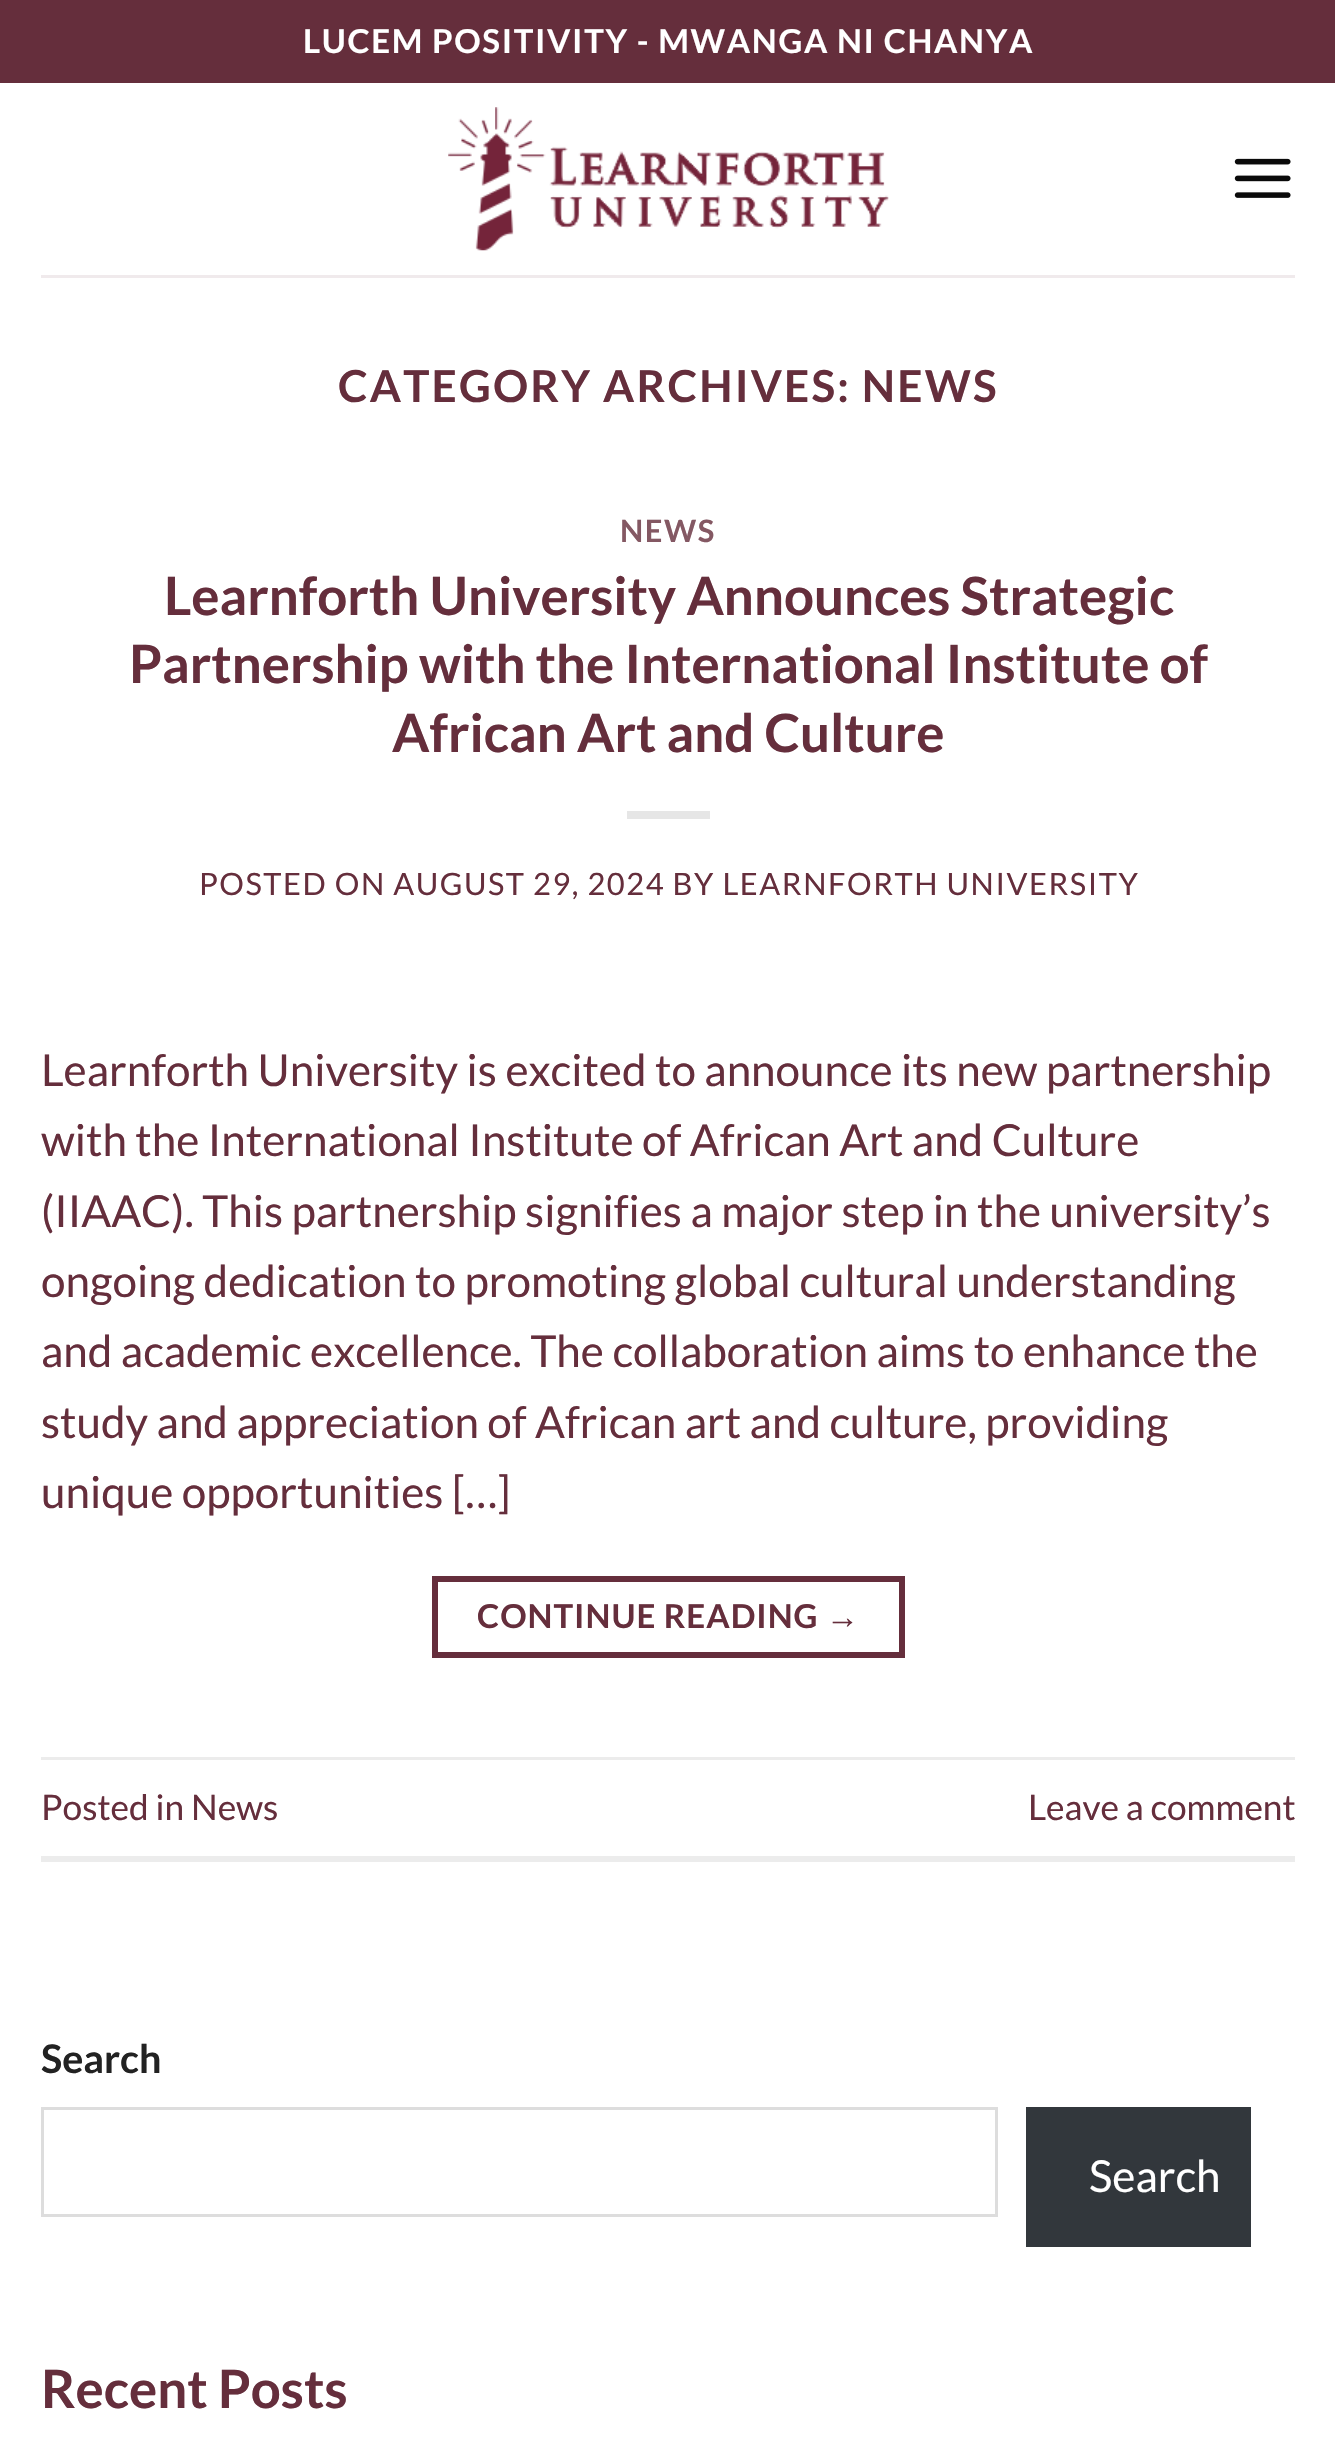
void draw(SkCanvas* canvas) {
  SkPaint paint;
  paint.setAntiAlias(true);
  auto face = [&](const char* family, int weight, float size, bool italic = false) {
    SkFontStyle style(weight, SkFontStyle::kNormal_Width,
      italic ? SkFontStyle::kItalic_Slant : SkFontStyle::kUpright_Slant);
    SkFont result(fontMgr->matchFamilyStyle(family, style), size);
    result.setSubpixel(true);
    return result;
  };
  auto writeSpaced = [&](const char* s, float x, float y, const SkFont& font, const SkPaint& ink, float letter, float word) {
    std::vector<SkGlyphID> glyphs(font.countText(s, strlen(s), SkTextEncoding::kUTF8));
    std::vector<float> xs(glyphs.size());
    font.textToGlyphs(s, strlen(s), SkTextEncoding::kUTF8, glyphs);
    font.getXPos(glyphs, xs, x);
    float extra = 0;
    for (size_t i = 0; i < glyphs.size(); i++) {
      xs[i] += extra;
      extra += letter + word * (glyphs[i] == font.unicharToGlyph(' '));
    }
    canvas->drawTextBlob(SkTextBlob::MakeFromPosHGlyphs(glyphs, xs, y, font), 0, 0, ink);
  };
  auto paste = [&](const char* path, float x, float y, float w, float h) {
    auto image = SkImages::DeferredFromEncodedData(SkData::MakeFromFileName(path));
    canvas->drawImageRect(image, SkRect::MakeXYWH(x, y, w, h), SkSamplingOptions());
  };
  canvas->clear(0xffffffff);
  paint.setColor(0xff652e3c);
  canvas->drawRect(SkRect::MakeXYWH(0, 0, 1335, 83), paint);
  paste("img/1.png", 448, 107, 441, 144);
  paste("img/2.png", 1234, 158, 57, 40);
  paint.setColor(0xfff0eaec);
  canvas->drawRect(SkRect::MakeXYWH(41, 275, 1254, 3), paint);
  paint.setColor(0xffe6e6e6);
  canvas->drawRect(SkRect::MakeXYWH(627, 811, 83, 8), paint);
  paint.setStroke(true);
  paint.setStrokeWidth(6);
  paint.setColor(0xff652e3c);
  canvas->drawRect(SkRect::MakeXYWH(435, 1579, 467, 76), paint);
  paint.setStroke(false);
  paint.setColor(0xffececec);
  canvas->drawRect(SkRect::MakeXYWH(41, 1757, 1254, 3), paint);
  canvas->drawRect(SkRect::MakeXYWH(41, 1856, 1254, 6), paint);
  paint.setStroke(true);
  paint.setStrokeWidth(3);
  paint.setColor(0xffdddddd);
  canvas->drawRect(SkRect::MakeXYWH(42.5f, 2108.5f, 954, 107), paint);
  paint.setStroke(false);
  paint.setColor(0xff32373c);
  canvas->drawRect(SkRect::MakeXYWH(1026, 2107, 225, 140), paint);
  auto f0 = face("Lato", 700, 33);
  paint.setColor(0xffffffff);
  writeSpaced("LUCEM POSITIVITY - MWANGA NI CHANYA", 303, 53, f0, paint, 1.65f, 0);
  auto f1 = face("Lato", 700, 44);
  paint.setColor(0xff652e3c);
  writeSpaced("CATEGORY ARCHIVES: NEWS", 338, 402, f1, paint, 2.2f, 0);
  auto f2 = face("Lato", 700, 30.8f);
  paint.setColor(0xff845863);
  writeSpaced("NEWS", 620, 542, f2, paint, 1.55f, 0);
  auto f3 = face("Lato", 700, 52.8f);
  paint.setColor(0xff652e3c);
  {
    const struct { const char* s; float x, y; } items[] = {
      {"Learnforth University Announces Strategic", 164, 615},
      {"Partnership with the International Institute of", 129, 683},
      {"African Art and Culture", 392, 752},
    };
    for (auto [s, x, y] : items) {
      canvas->drawString(s, x, y, f3, paint);
    }
  }
  auto f4 = face("Lato", 400, 30.8f);
  writeSpaced("POSTED ON AUGUST 29, 2024 BY LEARNFORTH UNIVERSITY", 199, 895, f4, paint, 1.55f, 0);
  auto f5 = face("Lato", 400, 44);
  {
    const struct { const char* s; float x, y; } items[] = {
      {"Learnforth University is excited to announce its new partnership", 41, 1086},
      {"with the International Institute of African Art and Culture", 41, 1156},
      {"(IIAAC). This partnership signifies a major step in the university’s", 41, 1227},
      {"ongoing dedication to promoting global cultural understanding", 41, 1297},
      {"and academic excellence. The collaboration aims to enhance the", 41, 1367},
      {"study and appreciation of African art and culture, providing", 41, 1438},
      {"unique opportunities […]", 41, 1508},
    };
    for (auto [s, x, y] : items) {
      canvas->drawString(s, x, y, f5, paint);
    }
  }
  writeSpaced("CONTINUE READING", 477, 1628, f0, paint, 1, 0);
  auto f6 = face("Liberation Sans", 700, 33);
  writeSpaced("→", 826, 1628, f6, paint, 1, 0);
  auto f7 = face("Lato", 400, 35.25f);
  canvas->drawString("Posted in News", 41, 1820, f7, paint);
  canvas->drawString("Leave a comment", 1028, 1820, f7, paint);
  auto f8 = face("Lato", 700, 39.5f);
  paint.setColor(0xff222222);
  canvas->drawString("Search", 41, 2073, f8, paint);
  paint.setColor(0xffffffff);
  canvas->drawString("Search", 1089, 2192, f5, paint);
  paint.setColor(0xff652e3c);
  canvas->drawString("Recent Posts", 41, 2408, f3, paint);
}
